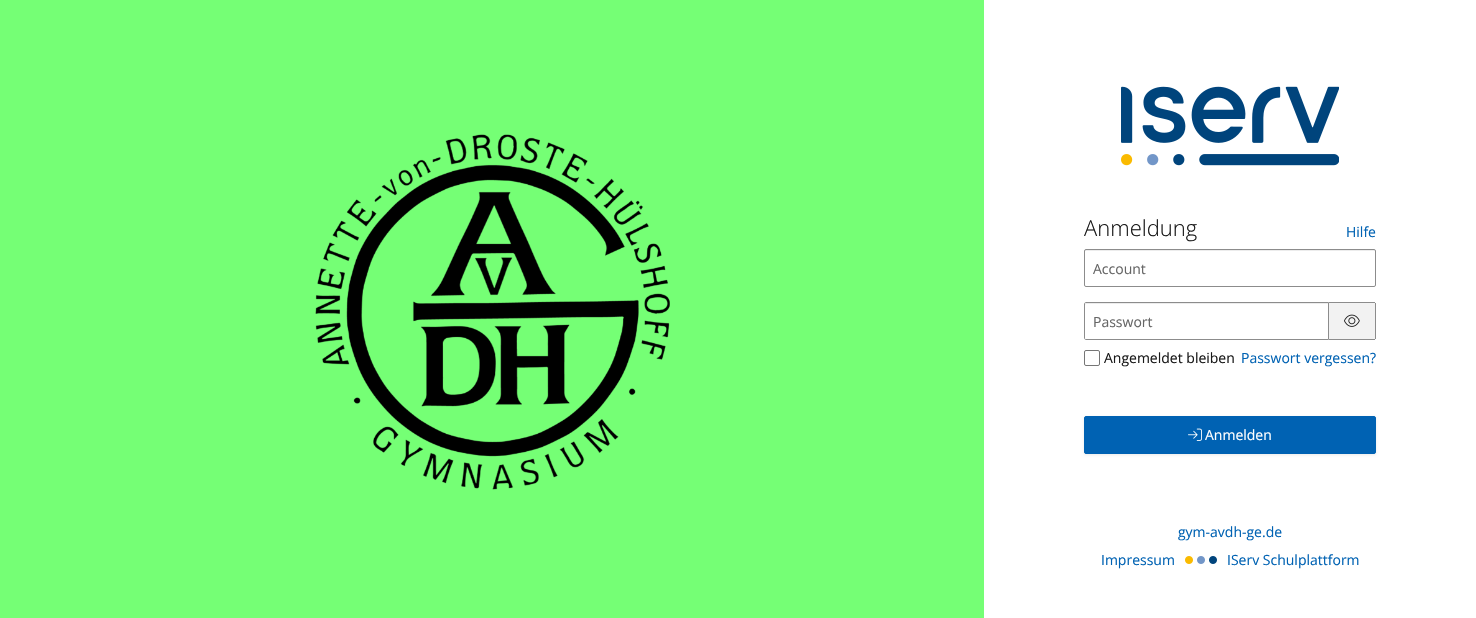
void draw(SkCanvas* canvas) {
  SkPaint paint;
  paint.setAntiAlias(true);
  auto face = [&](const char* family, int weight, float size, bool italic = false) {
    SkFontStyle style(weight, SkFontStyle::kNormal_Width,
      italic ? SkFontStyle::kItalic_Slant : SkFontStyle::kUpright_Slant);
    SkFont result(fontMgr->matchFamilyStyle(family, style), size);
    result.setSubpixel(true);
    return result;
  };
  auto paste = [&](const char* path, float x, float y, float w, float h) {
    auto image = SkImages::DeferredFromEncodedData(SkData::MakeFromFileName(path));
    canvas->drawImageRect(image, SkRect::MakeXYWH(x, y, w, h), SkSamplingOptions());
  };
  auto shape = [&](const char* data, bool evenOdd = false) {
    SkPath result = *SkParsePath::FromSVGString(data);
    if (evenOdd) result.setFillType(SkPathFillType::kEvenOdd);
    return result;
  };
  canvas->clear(0xffffffff);
  paint.setColor(0xff75ff75);
  canvas->drawRect(SkRect::MakeXYWH(0, 0, 984, 618), paint);
  paste("img/1.png", 315, 134, 355, 356);
  paste("img/2.png", 1121, 86, 218, 80);
  paint.setColor(0xffececec);
  canvas->drawPath(shape("M1086 251H1374C1375 251 1375 251 1375 252C1375 251 1375 250 1374 250H1086H1085V252C1085 251 1085 251 1086 251Z"), paint);
  paint.setStroke(true);
  paint.setStrokeWidth(1);
  paint.setColor(0xff8c8c8c);
  canvas->drawRoundRect(SkRect::MakeXYWH(1084.5f, 249.5f, 291, 37), 1.5f, 1.5f, paint);
  paint.setStroke(false);
  paint.setColor(0xffececec);
  canvas->drawPath(shape("M1086 304H1328V303H1086C1085 303 1085 304 1085 305Z"), paint);
  paint.setStroke(true);
  paint.setColor(0xff8c8c8c);
  canvas->drawPath(shape("M1086 302.5H1328.5V339.5H1086C1085 339.5 1084.5 339 1084.5 338V304C1084.5 303 1085 302.5 1086 302.5Z"), paint);
  paint.setStroke(false);
  paint.setColor(0xfff2f2f2);
  canvas->drawPath(shape("M1329 302H1374C1375 302 1376 303 1376 304V338C1376 339 1375 340 1374 340H1329Z"), paint);
  {
    const struct { float x, y, w, h; SkColor color; } items[] = {
      {1329, 302, 46, 1, 0xff8c8c8c},
      {1375, 303, 1, 36, 0xff8c8c8c},
      {1329, 339, 46, 1, 0xff8c8c8c},
    };
    for (auto [x, y, w, h, color] : items) {
      paint.setColor(color);
      canvas->drawRect(SkRect::MakeXYWH(x, y, w, h), paint);
    }
  }
  paste("img/3.png", 1344, 314, 16, 13);
  paint.setStroke(true);
  paint.setColor(0xff767676);
  canvas->drawRoundRect(SkRect::MakeXYWH(1084.5f, 350.5f, 15, 15), 1.5f, 1.5f, paint);
  paint.setStroke(false);
  paint.setColor(0x14000000);
  paint.setMaskFilter(SkMaskFilter::MakeBlur(kNormal_SkBlurStyle, 1.5f));
  canvas->drawRoundRect(SkRect::MakeXYWH(1084, 417, 292, 38), 2, 2, paint);
  paint.setMaskFilter(nullptr);
  paint.setColor(0xff0062b3);
  canvas->drawRoundRect(SkRect::MakeXYWH(1084.5f, 416.5f, 291, 37), 1.5f, 1.5f, paint);
  paint.setStroke(true);
  canvas->drawRoundRect(SkRect::MakeXYWH(1084.5f, 416.5f, 291, 37), 1.5f, 1.5f, paint);
  paste("img/4.png", 1188, 428, 14, 13);
  paste("img/5.png", 1185, 556, 8, 8);
  paste("img/6.png", 1197, 556, 8, 8);
  paste("img/7.png", 1209, 556, 8, 8);
  auto f0 = face("Open Sans", 300, 22);
  paint.setStroke(false);
  paint.setColor(0xff1a1a1a);
  canvas->drawString("Anmeldung", 1084, 236, f0, paint);
  auto f1 = face("Open Sans", 400, 14);
  paint.setColor(0xff0062b3);
  canvas->drawString("Hilfe", 1346, 237, f1, paint);
  paint.setColor(0xff666666);
  canvas->drawString("Account", 1093, 274, f1, paint);
  canvas->drawString("Passwort", 1093, 327, f1, paint);
  paint.setColor(0xff1a1a1a);
  canvas->drawString("Angemeldet bleiben", 1104, 363, f1, paint);
  paint.setColor(0xff0062b3);
  canvas->drawString("Passwort vergessen?", 1241, 363, f1, paint);
  paint.setColor(0xffffffff);
  canvas->drawString("Anmelden", 1205, 440, f1, paint);
  paint.setColor(0xff0062b3);
  {
    const struct { const char* s; float x, y; } items[] = {
      {"gym-avdh-ge.de", 1178, 537},
      {"Impressum", 1101, 565},
      {"IServ Schulplattform", 1227, 565},
    };
    for (auto [s, x, y] : items) {
      canvas->drawString(s, x, y, f1, paint);
    }
  }
}
